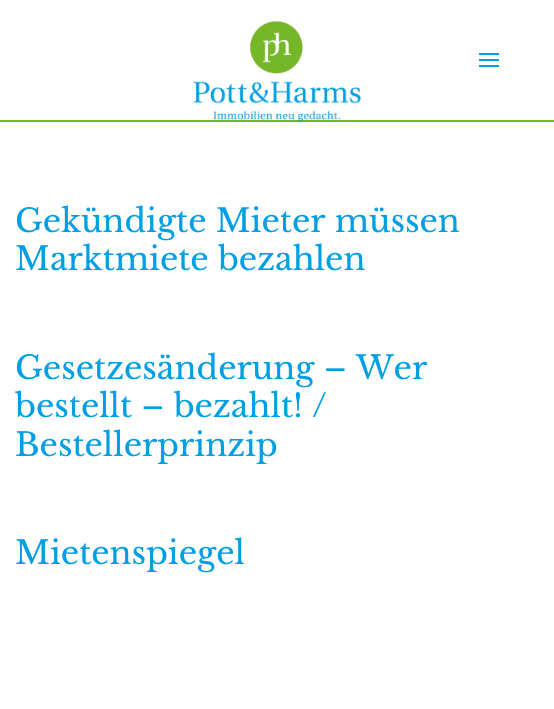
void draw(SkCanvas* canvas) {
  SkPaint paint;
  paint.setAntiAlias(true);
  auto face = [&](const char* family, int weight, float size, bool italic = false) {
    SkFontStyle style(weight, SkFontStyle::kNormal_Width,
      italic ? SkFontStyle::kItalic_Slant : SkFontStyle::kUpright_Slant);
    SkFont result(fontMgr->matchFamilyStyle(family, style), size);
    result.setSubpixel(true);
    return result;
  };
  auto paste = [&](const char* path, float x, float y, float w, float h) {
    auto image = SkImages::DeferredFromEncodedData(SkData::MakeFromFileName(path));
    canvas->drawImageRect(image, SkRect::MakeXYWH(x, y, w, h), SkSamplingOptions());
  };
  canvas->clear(0xffffffff);
  paint.setColor(0xff76b82a);
  canvas->drawRect(SkRect::MakeXYWH(0, 120, 554, 2), paint);
  paste("img/1.png", 193, 20, 168, 103);
  {
    const struct { float x, y, w, h; SkColor color; } items[] = {
      {479, 53, 20, 2, 0xff009fe3},
      {479, 59, 20, 2, 0xff009fe3},
      {479, 65, 20, 2, 0xff009fe3},
    };
    for (auto [x, y, w, h, color] : items) {
      paint.setColor(color);
      canvas->drawRect(SkRect::MakeXYWH(x, y, w, h), paint);
    }
  }
  auto f0 = face("Libre Baskerville", 400, 32);
  {
    const struct { const char* s; float x, y; } items[] = {
      {"Gekündigte Mieter müssen", 15, 232},
      {"Marktmiete bezahlen", 15, 270},
      {"Gesetzesänderung – Wer", 15, 379},
      {"bestellt – bezahlt! /", 15, 417},
      {"Bestellerprinzip", 15, 456},
      {"Mietenspiegel", 15, 564},
    };
    for (auto [s, x, y] : items) {
      canvas->drawString(s, x, y, f0, paint);
    }
  }
}
